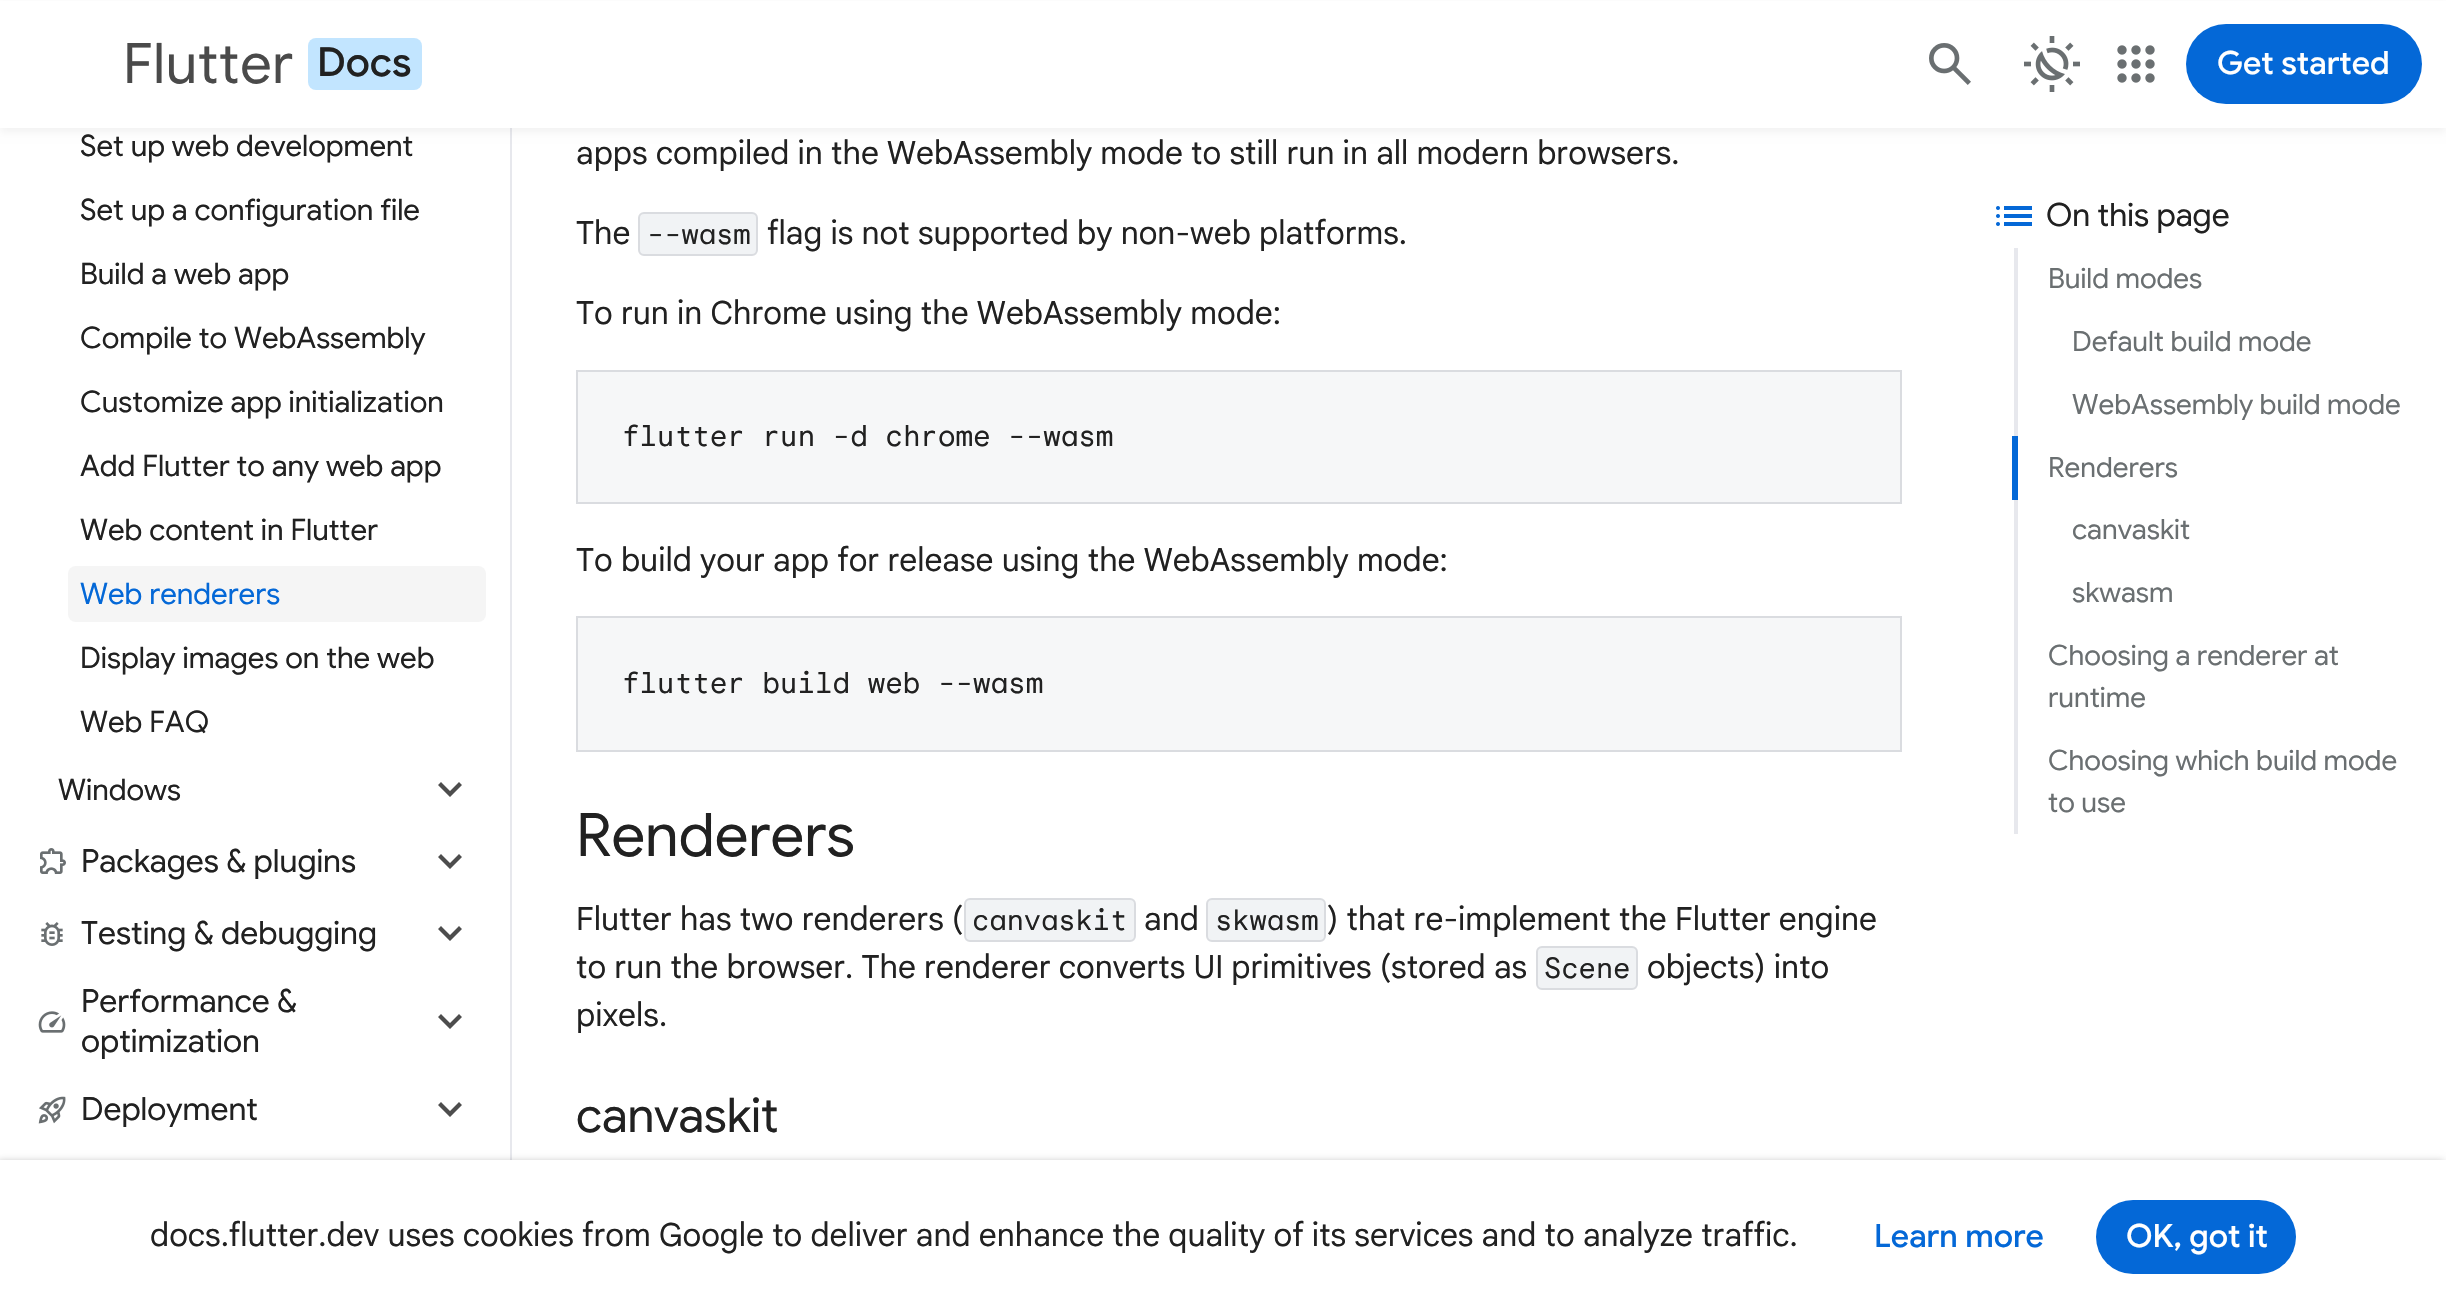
void draw(SkCanvas* canvas) {
  SkPaint paint;
  paint.setAntiAlias(true);
  auto face = [&](const char* family, int weight, float size, bool italic = false) {
    SkFontStyle style(weight, SkFontStyle::kNormal_Width,
      italic ? SkFontStyle::kItalic_Slant : SkFontStyle::kUpright_Slant);
    SkFont result(fontMgr->matchFamilyStyle(family, style), size);
    result.setSubpixel(true);
    return result;
  };
  auto writeSpaced = [&](const char* s, float x, float y, const SkFont& font, const SkPaint& ink, float letter, float word) {
    std::vector<SkGlyphID> glyphs(font.countText(s, strlen(s), SkTextEncoding::kUTF8));
    std::vector<float> xs(glyphs.size());
    font.textToGlyphs(s, strlen(s), SkTextEncoding::kUTF8, glyphs);
    font.getXPos(glyphs, xs, x);
    float extra = 0;
    for (size_t i = 0; i < glyphs.size(); i++) {
      xs[i] += extra;
      extra += letter + word * (glyphs[i] == font.unicharToGlyph(' '));
    }
    canvas->drawTextBlob(SkTextBlob::MakeFromPosHGlyphs(glyphs, xs, y, font), 0, 0, ink);
  };
  auto paste = [&](const char* path, float x, float y, float w, float h) {
    auto image = SkImages::DeferredFromEncodedData(SkData::MakeFromFileName(path));
    canvas->drawImageRect(image, SkRect::MakeXYWH(x, y, w, h), SkSamplingOptions());
  };
  auto shape = [&](const char* data, bool evenOdd = false) {
    SkPath result = *SkParsePath::FromSVGString(data);
    if (evenOdd) result.setFillType(SkPathFillType::kEvenOdd);
    return result;
  };
  canvas->clear(0xffffffff);
  paint.setColor(0xffe7e8ed);
  canvas->drawRect(SkRect::MakeXYWH(510, 128, 2, 1032), paint);
  paint.setColor(0x0d000000);
  paint.setMaskFilter(SkMaskFilter::MakeBlur(kNormal_SkBlurStyle, 4));
  canvas->drawRect(SkRect::MakeXYWH(0, 4, 2446, 128), paint);
  paint.setMaskFilter(nullptr);
  paint.setColor(0xffffffff);
  canvas->drawRect(SkRect::MakeXYWH(0, 1, 2446, 127), paint);
  paint.setColor(0xffc2e5ff);
  canvas->drawRoundRect(SkRect::MakeXYWH(308, 38, 114, 52), 8, 8, paint);
  paste("img/1.png", 1929, 43, 42, 42);
  paste("img/2.png", 2024, 36, 56, 56);
  paste("img/3.png", 2117, 45, 38, 38);
  paint.setColor(0xff0468d7);
  canvas->drawRoundRect(SkRect::MakeXYWH(2186, 24, 236, 80), 40, 40, paint);
  paint.setColor(0xfff5f5f5);
  canvas->drawRoundRect(SkRect::MakeXYWH(68, 566, 418, 56), 8, 8, paint);
  paint.setColor(0xff4d4d4d);
  canvas->drawPath(shape("M450 797L438 785L441 782L450 791L459 782L462 785Z"), paint);
  paste("img/4.png", 40, 848, 26, 26);
  canvas->drawPath(shape("M450 869L438 857L441 854L450 863L459 854L462 857Z"), paint);
  paste("img/5.png", 41, 922, 22, 24);
  canvas->drawPath(shape("M450 941L438 929L441 926L450 935L459 926L462 929Z"), paint);
  paste("img/6.png", 38, 1011, 28, 22);
  canvas->drawPath(shape("M450 1029L438 1017L441 1014L450 1023L459 1014L462 1017Z"), paint);
  paste("img/7.png", 38, 1096, 28, 28);
  canvas->drawPath(shape("M450 1117L438 1105L441 1102L450 1111L459 1102L462 1105Z"), paint);
  paint.setColor(0xfff1f3f5);
  canvas->drawRoundRect(SkRect::MakeXYWH(639, 213, 118, 42), 5, 5, paint);
  paint.setStroke(true);
  paint.setStrokeWidth(2);
  paint.setColor(0xffdadce0);
  canvas->drawRoundRect(SkRect::MakeXYWH(639, 213, 118, 42), 5, 5, paint);
  paint.setStroke(false);
  paint.setColor(0xfff6f7f8);
  canvas->drawRect(SkRect::MakeXYWH(577, 371, 1324, 132), paint);
  paint.setStroke(true);
  paint.setColor(0xffdadce0);
  canvas->drawRect(SkRect::MakeXYWH(577, 371, 1324, 132), paint);
  paint.setStroke(false);
  paint.setColor(0xfff6f7f8);
  canvas->drawRect(SkRect::MakeXYWH(577, 617, 1324, 134), paint);
  paint.setStroke(true);
  paint.setColor(0xffdadce0);
  canvas->drawRect(SkRect::MakeXYWH(577, 617, 1324, 134), paint);
  paint.setStroke(false);
  paint.setColor(0xfff1f3f5);
  canvas->drawRoundRect(SkRect::MakeXYWH(965, 899, 170, 42), 5, 5, paint);
  paint.setStroke(true);
  paint.setColor(0xffdadce0);
  canvas->drawRoundRect(SkRect::MakeXYWH(965, 899, 170, 42), 5, 5, paint);
  paint.setStroke(false);
  paint.setColor(0xfff1f3f5);
  canvas->drawRoundRect(SkRect::MakeXYWH(1207, 899, 118, 42), 5, 5, paint);
  paint.setStroke(true);
  paint.setColor(0xffdadce0);
  canvas->drawRoundRect(SkRect::MakeXYWH(1207, 899, 118, 42), 5, 5, paint);
  paint.setStroke(false);
  paint.setColor(0xfff1f3f5);
  canvas->drawRoundRect(SkRect::MakeXYWH(1537, 947, 100, 42), 5, 5, paint);
  paint.setStroke(true);
  paint.setColor(0xffdadce0);
  canvas->drawRoundRect(SkRect::MakeXYWH(1537, 947, 100, 42), 5, 5, paint);
  paste("img/8.png", 1996, 206, 36, 20);
  paint.setStroke(false);
  {
    const struct { float x, y, w, h; SkColor color; } items[] = {
      {2014, 248, 4, 188, 0xffe7e8ed},
      {2012, 436, 6, 64, 0xff0468d7},
      {2014, 500, 4, 334, 0xffe7e8ed},
    };
    for (auto [x, y, w, h, color] : items) {
      paint.setColor(color);
      canvas->drawRect(SkRect::MakeXYWH(x, y, w, h), paint);
    }
  }
  paint.setColor(0x4d000000);
  paint.setMaskFilter(SkMaskFilter::MakeBlur(kNormal_SkBlurStyle, 4));
  canvas->drawRect(SkRect::MakeXYWH(-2, 1162, 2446, 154), paint);
  paint.setMaskFilter(nullptr);
  paint.setColor(0xffffffff);
  canvas->drawRect(SkRect::MakeXYWH(0, 1160, 2446, 153), paint);
  paint.setColor(0xff0468d7);
  canvas->drawRoundRect(SkRect::MakeXYWH(2096, 1200, 200, 74), 37, 37, paint);
  auto f0 = face("Google Sans", 400, 56);
  paint.setColor(0xff4a4a4a);
  writeSpaced("Flutter", 123, 83, f0, paint, 0.75f, 0);
  auto f1 = face("Google Sans", 500, 40);
  paint.setColor(0xff212121);
  canvas->drawString("Docs", 317, 76, f1, paint);
  auto f2 = face("Google Sans", 500, 32);
  paint.setColor(0xffffffff);
  canvas->drawString("Get started", 2217, 74, f2, paint);
  auto f3 = face("Google Sans", 400, 29.6f);
  paint.setColor(0xff212121);
  {
    const struct { const char* s; float x, y; } items[] = {
      {"Set up web development", 80, 156},
      {"Set up a configuration file", 80, 220},
      {"Build a web app", 80, 284},
      {"Compile to WebAssembly", 80, 348},
      {"Customize app initialization", 80, 412},
      {"Add Flutter to any web app", 80, 476},
      {"Web content in Flutter", 80, 540},
    };
    for (auto [s, x, y] : items) {
      canvas->drawString(s, x, y, f3, paint);
    }
  }
  paint.setColor(0xff0468d7);
  canvas->drawString("Web renderers", 80, 604, f3, paint);
  paint.setColor(0xff212121);
  {
    const struct { const char* s; float x, y; } items[] = {
      {"Display images on the web", 80, 668},
      {"Web FAQ", 80, 732},
      {"Windows", 58, 800},
    };
    for (auto [s, x, y] : items) {
      canvas->drawString(s, x, y, f3, paint);
    }
  }
  auto f4 = face("Google Sans", 400, 32);
  {
    const struct { const char* s; float x, y; } items[] = {
      {"Packages & plugins", 81, 872},
      {"Testing & debugging", 81, 944},
      {"Performance &", 81, 1012},
      {"optimization", 81, 1052},
      {"Deployment", 81, 1120},
    };
    for (auto [s, x, y] : items) {
      canvas->drawString(s, x, y, f4, paint);
    }
  }
  auto f5 = face("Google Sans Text", 400, 32);
  canvas->drawString("apps compiled in the WebAssembly mode to still run in all modern browsers.", 576, 164, f5, paint);
  canvas->drawString("The", 576, 244, f5, paint);
  auto f6 = face("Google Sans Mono", 400, 28.75f);
  canvas->drawString("--wasm", 647, 244, f6, paint);
  canvas->drawString("flag is not supported by non-web platforms.", 767, 244, f5, paint);
  canvas->drawString("To run in Chrome using the WebAssembly mode:", 576, 324, f5, paint);
  auto f7 = face("Google Sans Mono", 400, 29.25f);
  canvas->drawString("flutter run -d chrome --wasm", 622, 446, f7, paint);
  canvas->drawString("To build your app for release using the WebAssembly mode:", 576, 571, f5, paint);
  canvas->drawString("flutter build web --wasm", 622, 693, f7, paint);
  auto f8 = face("Google Sans", 400, 60);
  canvas->drawString("Renderers", 576, 856, f8, paint);
  canvas->drawString("Flutter has two renderers (", 576, 930, f5, paint);
  canvas->drawString("canvaskit", 972, 930, f6, paint);
  canvas->drawString("and", 1144, 930, f5, paint);
  canvas->drawString("skwasm", 1215, 930, f6, paint);
  canvas->drawString(") that re-implement the Flutter engine", 1327, 930, f5, paint);
  canvas->drawString("to run the browser. The renderer converts UI primitives (stored as", 576, 978, f5, paint);
  canvas->drawString("Scene", 1544, 978, f6, paint);
  canvas->drawString("objects) into", 1647, 978, f5, paint);
  canvas->drawString("pixels.", 576, 1026, f5, paint);
  auto f9 = face("Google Sans", 400, 48);
  canvas->drawString("canvaskit", 576, 1132, f9, paint);
  canvas->drawString("On this page", 2046, 226, f4, paint);
  auto f10 = face("Google Sans", 400, 28);
  paint.setColor(0xff6a6f71);
  {
    const struct { const char* s; float x, y; } items[] = {
      {"Build modes", 2048, 288},
      {"Default build mode", 2072, 351},
      {"WebAssembly build mode", 2072, 414},
      {"Renderers", 2048, 477},
      {"canvaskit", 2072, 539},
      {"skwasm", 2072, 602},
      {"Choosing a renderer at", 2048, 665},
      {"runtime", 2048, 707},
      {"Choosing which build mode", 2048, 770},
      {"to use", 2048, 812},
    };
    for (auto [s, x, y] : items) {
      canvas->drawString(s, x, y, f10, paint);
    }
  }
  paint.setColor(0xff212121);
  canvas->drawString("docs.flutter.dev uses cookies from Google to deliver and enhance the quality of its services and to analyze traffic.", 150, 1246, f5, paint);
  paint.setColor(0xff0468d7);
  canvas->drawString("Learn more", 1874, 1247, f2, paint);
  paint.setColor(0xffffffff);
  canvas->drawString("OK, got it", 2126, 1247, f2, paint);
}
